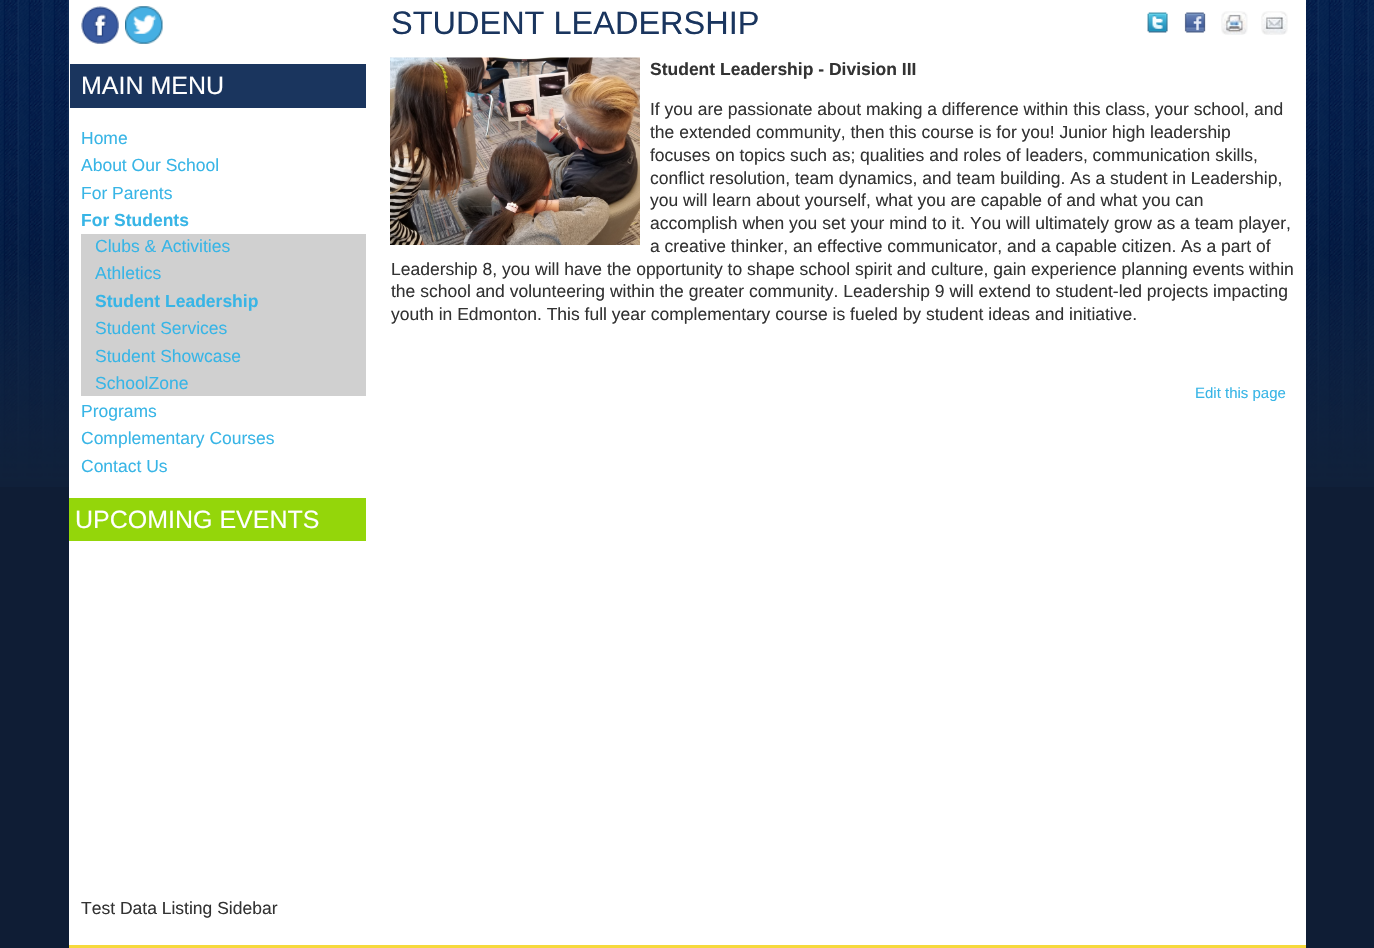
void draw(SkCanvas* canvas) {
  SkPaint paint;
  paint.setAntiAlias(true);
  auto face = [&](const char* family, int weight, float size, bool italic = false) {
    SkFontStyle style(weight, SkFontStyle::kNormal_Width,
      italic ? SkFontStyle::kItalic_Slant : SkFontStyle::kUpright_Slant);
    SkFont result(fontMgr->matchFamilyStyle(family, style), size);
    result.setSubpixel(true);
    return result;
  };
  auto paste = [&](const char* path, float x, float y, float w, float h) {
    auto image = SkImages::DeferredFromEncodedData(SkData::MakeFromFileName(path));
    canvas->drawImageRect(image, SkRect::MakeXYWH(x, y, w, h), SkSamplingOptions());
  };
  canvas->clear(0xff0f1d35);
  paste("img/1.png", 0, 0, 1374, 487);
  paint.setColor(0xffffffff);
  canvas->drawRect(SkRect::MakeXYWH(69, 0, 1237, 945), paint);
  paste("img/2.png", 81, 6, 38, 38);
  paste("img/3.png", 125, 6, 38, 38);
  {
    const struct { float x, y, w, h; SkColor color; } items[] = {
      {70, 64, 296, 44, 0xff1a355e},
      {81, 234, 285, 162, 0xffd0d0d0},
      {69, 498, 297, 43, 0xff94d60a},
    };
    for (auto [x, y, w, h, color] : items) {
      paint.setColor(color);
      canvas->drawRect(SkRect::MakeXYWH(x, y, w, h), paint);
    }
  }
  paste("img/4.png", 390, 57, 250, 188);
  paste("img/5.png", 1147, 12, 21, 21);
  paste("img/6.png", 1184, 12, 22, 21);
  paste("img/7.png", 1221, 11, 27, 24);
  paste("img/8.png", 1261, 11, 27, 24);
  paint.setColor(0xfff6d93c);
  canvas->drawRect(SkRect::MakeXYWH(69, 945, 1237, 3), paint);
  auto f0 = face("Liberation Sans", 400, 25);
  paint.setColor(0xffffffff);
  canvas->drawString("MAIN MENU", 81, 94, f0, paint);
  auto f1 = face("Liberation Sans", 400, 17.5f);
  paint.setColor(0xff38b5e6);
  {
    const struct { const char* s; float x, y; } items[] = {
      {"Home", 81, 144},
      {"About Our School", 81, 171},
      {"For Parents", 81, 199},
    };
    for (auto [s, x, y] : items) {
      canvas->drawString(s, x, y, f1, paint);
    }
  }
  auto f2 = face("Liberation Sans", 700, 17.5f);
  canvas->drawString("For Students", 81, 226, f2, paint);
  canvas->drawString("Clubs & Activities", 95, 252, f1, paint);
  canvas->drawString("Athletics", 95, 279, f1, paint);
  canvas->drawString("Student Leadership", 95, 307, f2, paint);
  {
    const struct { const char* s; float x, y; } items[] = {
      {"Student Services", 95, 334},
      {"Student Showcase", 95, 362},
      {"SchoolZone", 95, 389},
      {"Programs", 81, 417},
      {"Complementary Courses", 81, 444},
      {"Contact Us", 81, 472},
    };
    for (auto [s, x, y] : items) {
      canvas->drawString(s, x, y, f1, paint);
    }
  }
  paint.setColor(0xffffffff);
  canvas->drawString("UPCOMING EVENTS", 75, 528, f0, paint);
  paint.setColor(0xff333333);
  canvas->drawString("Test Data Listing Sidebar", 81, 914, f1, paint);
  auto f3 = face("Liberation Sans", 400, 32.5f);
  paint.setColor(0xff1a355e);
  canvas->drawString("STUDENT LEADERSHIP", 391, 34, f3, paint);
  paint.setColor(0xff333333);
  canvas->drawString("Student Leadership - Division III", 650, 75, f2, paint);
  {
    const struct { const char* s; float x, y; } items[] = {
      {"If you are passionate about making a difference within this class, your school, and", 650, 115},
      {"the extended community, then this course is for you! Junior high leadership", 650, 138},
      {"focuses on topics such as; qualities and roles of leaders, communication skills,", 650, 161},
      {"conflict resolution, team dynamics, and team building. As a student in Leadership,", 650, 184},
      {"you will learn about yourself, what you are capable of and what you can", 650, 206},
      {"accomplish when you set your mind to it. You will ultimately grow as a team player,", 650, 229},
      {"a creative thinker, an effective communicator, and a capable citizen. As a part of", 650, 252},
      {"Leadership 8, you will have the opportunity to shape school spirit and culture, gain experience planning events within", 391, 275},
      {"the school and volunteering within the greater community. Leadership 9 will extend to student-led projects impacting", 391, 297},
      {"youth in Edmonton. This full year complementary course is fueled by student ideas and initiative.", 391, 320},
    };
    for (auto [s, x, y] : items) {
      canvas->drawString(s, x, y, f1, paint);
    }
  }
  auto f4 = face("Liberation Sans", 400, 15);
  paint.setColor(0xff38b5e6);
  canvas->drawString("Edit this page", 1195, 398, f4, paint);
}
